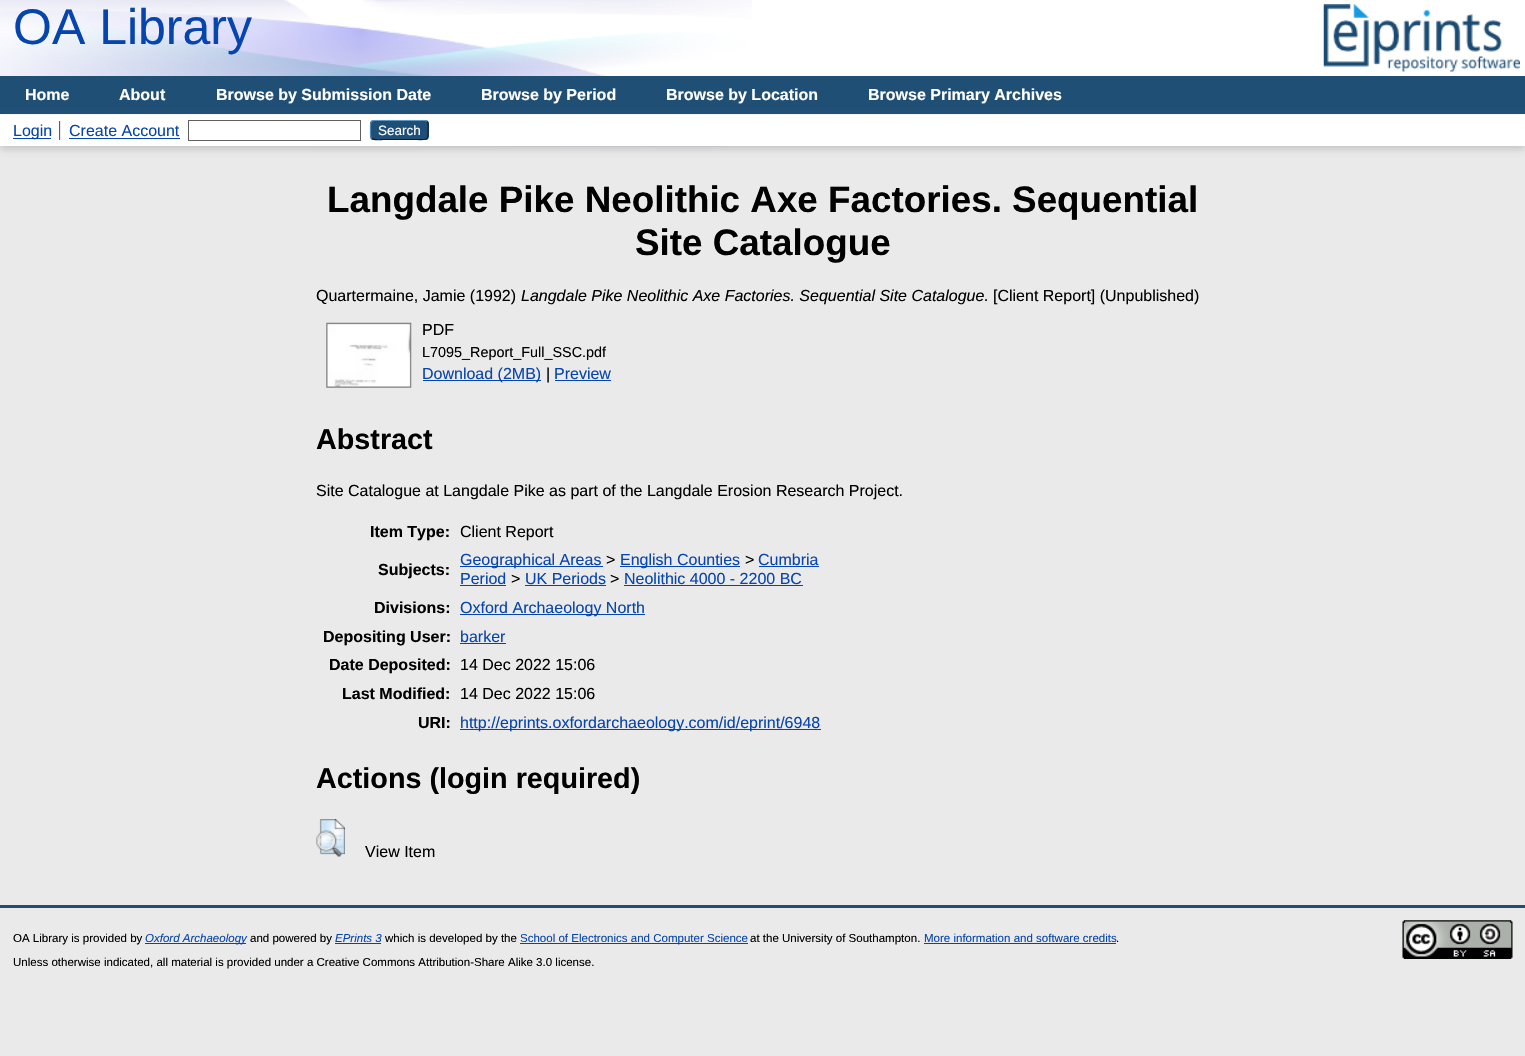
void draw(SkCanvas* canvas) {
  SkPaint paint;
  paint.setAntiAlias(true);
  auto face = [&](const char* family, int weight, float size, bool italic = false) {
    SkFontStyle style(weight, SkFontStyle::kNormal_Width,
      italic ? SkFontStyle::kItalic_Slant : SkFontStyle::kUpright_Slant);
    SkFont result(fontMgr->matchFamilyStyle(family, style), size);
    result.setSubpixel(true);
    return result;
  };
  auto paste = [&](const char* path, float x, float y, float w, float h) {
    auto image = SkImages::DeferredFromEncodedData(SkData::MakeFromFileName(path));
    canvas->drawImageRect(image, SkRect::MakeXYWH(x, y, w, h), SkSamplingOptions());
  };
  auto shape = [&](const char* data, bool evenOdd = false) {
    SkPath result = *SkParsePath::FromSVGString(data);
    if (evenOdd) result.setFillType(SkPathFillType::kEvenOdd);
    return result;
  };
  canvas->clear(0xffeaeaea);
  paint.setColor(0xffffffff);
  canvas->drawRect(SkRect::MakeXYWH(0, 0, 1525, 76), paint);
  paste("img/1.png", 0, 0, 752, 147);
  paste("img/2.png", 1323, 4, 197, 68);
  paint.setColor(0xff204f76);
  canvas->drawRect(SkRect::MakeXYWH(0, 76, 1525, 38), paint);
  paint.setColor(0xffffffff);
  canvas->drawRect(SkRect::MakeXYWH(0, 114, 1525, 1), paint);
  paint.setColor(0x4d646464);
  paint.setMaskFilter(SkMaskFilter::MakeBlur(kNormal_SkBlurStyle, 4));
  canvas->drawRect(SkRect::MakeXYWH(0, 118, 1525, 31), paint);
  paint.setMaskFilter(nullptr);
  {
    const struct { float x, y, w, h; SkColor color; } items[] = {
      {0, 115, 1525, 31, 0xffffffff},
      {59, 121, 1, 19, 0xff606060},
      {13, 138, 38, 1, 0xff0645ad},
      {60, 121, 1, 19, 0xffe8e8e8},
      {69, 138, 111, 1, 0xff0645ad},
    };
    for (auto [x, y, w, h, color] : items) {
      paint.setColor(color);
      canvas->drawRect(SkRect::MakeXYWH(x, y, w, h), paint);
    }
  }
  paint.setStroke(true);
  paint.setStrokeWidth(1);
  paint.setColor(0xff606060);
  canvas->drawRect(SkRect::MakeXYWH(188.5f, 120.5f, 172, 20), paint);
  paint.setStroke(false);
  paint.setColor(0xff1f4f76);
  canvas->drawRoundRect(SkRect::MakeXYWH(370, 120, 59, 20), 4, 4, paint);
  paint.setStroke(true);
  paint.setStrokeWidth(1.2f);
  paint.setColor(0xff5b97c7);
  canvas->drawPath(shape("M371.5 121.5L373.5 120.5H425.5L427 121.5"), paint);
  paint.setColor(0xff0d2131);
  canvas->drawPath(shape("M427 121.5C429 123.5 428 127.5 428 130C428 141 428.5 139.5 416.5 139.5H382.5C382 139.5 374 140.5 371.5 138.5"), paint);
  paint.setColor(0xff5287b3);
  canvas->drawPath(shape("M371.5 138.5C370 136.5 370.5 132 370.5 130C370.5 128 370 123.5 371.5 121.5"), paint);
  paste("img/3.png", 326, 322, 86, 66);
  paint.setStroke(false);
  {
    const struct { float x, y, w, h; SkColor color; } items[] = {
      {423, 380, 118, 1, 0xff0645ad},
      {555, 380, 56, 1, 0xff0645ad},
      {460, 566, 143, 1, 0xff0645ad},
      {620, 566, 120, 1, 0xff0645ad},
      {759, 566, 60, 1, 0xff0645ad},
      {460, 585, 46, 1, 0xff0645ad},
      {525, 585, 81, 1, 0xff0645ad},
      {624, 585, 179, 1, 0xff0645ad},
      {460, 614, 185, 1, 0xff0645ad},
      {460, 643, 46, 1, 0xff0645ad},
      {460, 729, 361, 1, 0xff0645ad},
    };
    for (auto [x, y, w, h, color] : items) {
      paint.setColor(color);
      canvas->drawRect(SkRect::MakeXYWH(x, y, w, h), paint);
    }
  }
  paste("img/4.png", 316, 819, 29, 38);
  {
    const struct { float x, y, w, h; SkColor color; } items[] = {
      {0, 905, 1525, 3, 0xff204f76},
      {145, 943, 101, 1, 0xff0645ad},
      {335, 943, 46, 1, 0xff0645ad},
      {520, 943, 228, 1, 0xff0645ad},
      {924, 943, 192, 1, 0xff0645ad},
    };
    for (auto [x, y, w, h, color] : items) {
      paint.setColor(color);
      canvas->drawRect(SkRect::MakeXYWH(x, y, w, h), paint);
    }
  }
  paste("img/5.png", 1402, 920, 111, 39);
  auto f0 = face("Liberation Sans", 400, 50);
  canvas->drawString("OA Library", 13, 44, f0, paint);
  auto f1 = face("Liberation Sans", 700, 16);
  paint.setColor(0xffffffff);
  {
    const struct { const char* s; float x, y; } items[] = {
      {"Home", 25, 100},
      {"About", 119, 100},
      {"Browse by Submission Date", 216, 100},
      {"Browse by Period", 481, 100},
      {"Browse by Location", 666, 100},
      {"Browse Primary Archives", 868, 100},
    };
    for (auto [s, x, y] : items) {
      canvas->drawString(s, x, y, f1, paint);
    }
  }
  auto f2 = face("Liberation Sans", 400, 16);
  paint.setColor(0xff0645ad);
  canvas->drawString("Login", 13, 136, f2, paint);
  canvas->drawString("Create Account", 69, 136, f2, paint);
  auto f3 = face("Liberation Sans", 400, 13.5f);
  paint.setColor(0xffffffff);
  canvas->drawString("Search", 378, 135, f3, paint);
  auto f4 = face("Liberation Sans", 700, 36.8f);
  paint.setColor(0xff000000);
  canvas->drawString("Langdale Pike Neolithic Axe Factories. Sequential", 327, 212, f4, paint);
  canvas->drawString("Site Catalogue", 635, 255, f4, paint);
  canvas->drawString("Quartermaine, Jamie (1992)", 316, 301, f2, paint);
  auto f5 = face("Liberation Sans", 400, 16, true);
  canvas->drawString("Langdale Pike Neolithic Axe Factories. Sequential Site Catalogue.", 521, 301, f5, paint);
  canvas->drawString("[Client Report] (Unpublished)", 993, 301, f2, paint);
  canvas->drawString("PDF", 422, 335, f2, paint);
  auto f6 = face("Liberation Sans", 400, 14.4f);
  canvas->drawString("L7095_Report_Full_SSC.pdf", 422, 357, f6, paint);
  paint.setColor(0xff0645ad);
  canvas->drawString("Download (2MB)", 422, 379, f2, paint);
  paint.setColor(0xff000000);
  canvas->drawString("|", 546, 379, f2, paint);
  paint.setColor(0xff0645ad);
  canvas->drawString("Preview", 554, 379, f2, paint);
  auto f7 = face("Liberation Sans", 700, 28.75f);
  paint.setColor(0xff000000);
  canvas->drawString("Abstract", 316, 449, f7, paint);
  canvas->drawString("Site Catalogue at Langdale Pike as part of the Langdale Erosion Research Project.", 316, 496, f2, paint);
  canvas->drawString("Item Type:", 370, 537, f1, paint);
  canvas->drawString("Client Report", 460, 537, f2, paint);
  canvas->drawString("Subjects:", 378, 575, f1, paint);
  paint.setColor(0xff0645ad);
  canvas->drawString("Geographical Areas", 460, 565, f2, paint);
  paint.setColor(0xff000000);
  canvas->drawString(">", 606, 565, f2, paint);
  paint.setColor(0xff0645ad);
  canvas->drawString("English Counties", 620, 565, f2, paint);
  paint.setColor(0xff000000);
  canvas->drawString(">", 745, 565, f2, paint);
  paint.setColor(0xff0645ad);
  canvas->drawString("Cumbria", 758, 565, f2, paint);
  canvas->drawString("Period", 460, 584, f2, paint);
  paint.setColor(0xff000000);
  canvas->drawString(">", 511, 584, f2, paint);
  paint.setColor(0xff0645ad);
  canvas->drawString("UK Periods", 525, 584, f2, paint);
  paint.setColor(0xff000000);
  canvas->drawString(">", 610, 584, f2, paint);
  paint.setColor(0xff0645ad);
  canvas->drawString("Neolithic 4000 - 2200 BC", 624, 584, f2, paint);
  paint.setColor(0xff000000);
  canvas->drawString("Divisions:", 374, 613, f1, paint);
  paint.setColor(0xff0645ad);
  canvas->drawString("Oxford Archaeology North", 460, 613, f2, paint);
  paint.setColor(0xff000000);
  canvas->drawString("Depositing User:", 323, 642, f1, paint);
  paint.setColor(0xff0645ad);
  canvas->drawString("barker", 460, 642, f2, paint);
  paint.setColor(0xff000000);
  canvas->drawString("Date Deposited:", 329, 670, f1, paint);
  canvas->drawString("14 Dec 2022 15:06", 460, 670, f2, paint);
  canvas->drawString("Last Modified:", 342, 699, f1, paint);
  canvas->drawString("14 Dec 2022 15:06", 460, 699, f2, paint);
  canvas->drawString("URI:", 418, 728, f1, paint);
  paint.setColor(0xff0645ad);
  canvas->drawString("http://eprints.oxfordarchaeology.com/id/eprint/6948", 460, 728, f2, paint);
  paint.setColor(0xff000000);
  canvas->drawString("Actions (login required)", 316, 788, f7, paint);
  canvas->drawString("View Item", 365, 857, f2, paint);
  auto f8 = face("Liberation Sans", 400, 11.52f);
  canvas->drawString("OA Library is provided by", 13, 942, f8, paint);
  auto f9 = face("Liberation Sans", 400, 11.52f, true);
  paint.setColor(0xff0645ad);
  canvas->drawString("Oxford Archaeology", 145, 942, f9, paint);
  paint.setColor(0xff000000);
  canvas->drawString("and powered by", 250, 942, f8, paint);
  paint.setColor(0xff0645ad);
  canvas->drawString("EPrints 3", 335, 942, f9, paint);
  paint.setColor(0xff000000);
  canvas->drawString("which is developed by the", 385, 942, f8, paint);
  paint.setColor(0xff0645ad);
  canvas->drawString("School of Electronics and Computer Science", 520, 942, f8, paint);
  paint.setColor(0xff000000);
  canvas->drawString("at the University of Southampton.", 750, 942, f8, paint);
  paint.setColor(0xff0645ad);
  canvas->drawString("More information and software credits", 924, 942, f8, paint);
  paint.setColor(0xff000000);
  canvas->drawString(".", 1116, 942, f8, paint);
  canvas->drawString("Unless otherwise indicated, all material is provided under a Creative Commons Attribution-Share Alike 3.0 license.", 13, 966, f8, paint);
}
